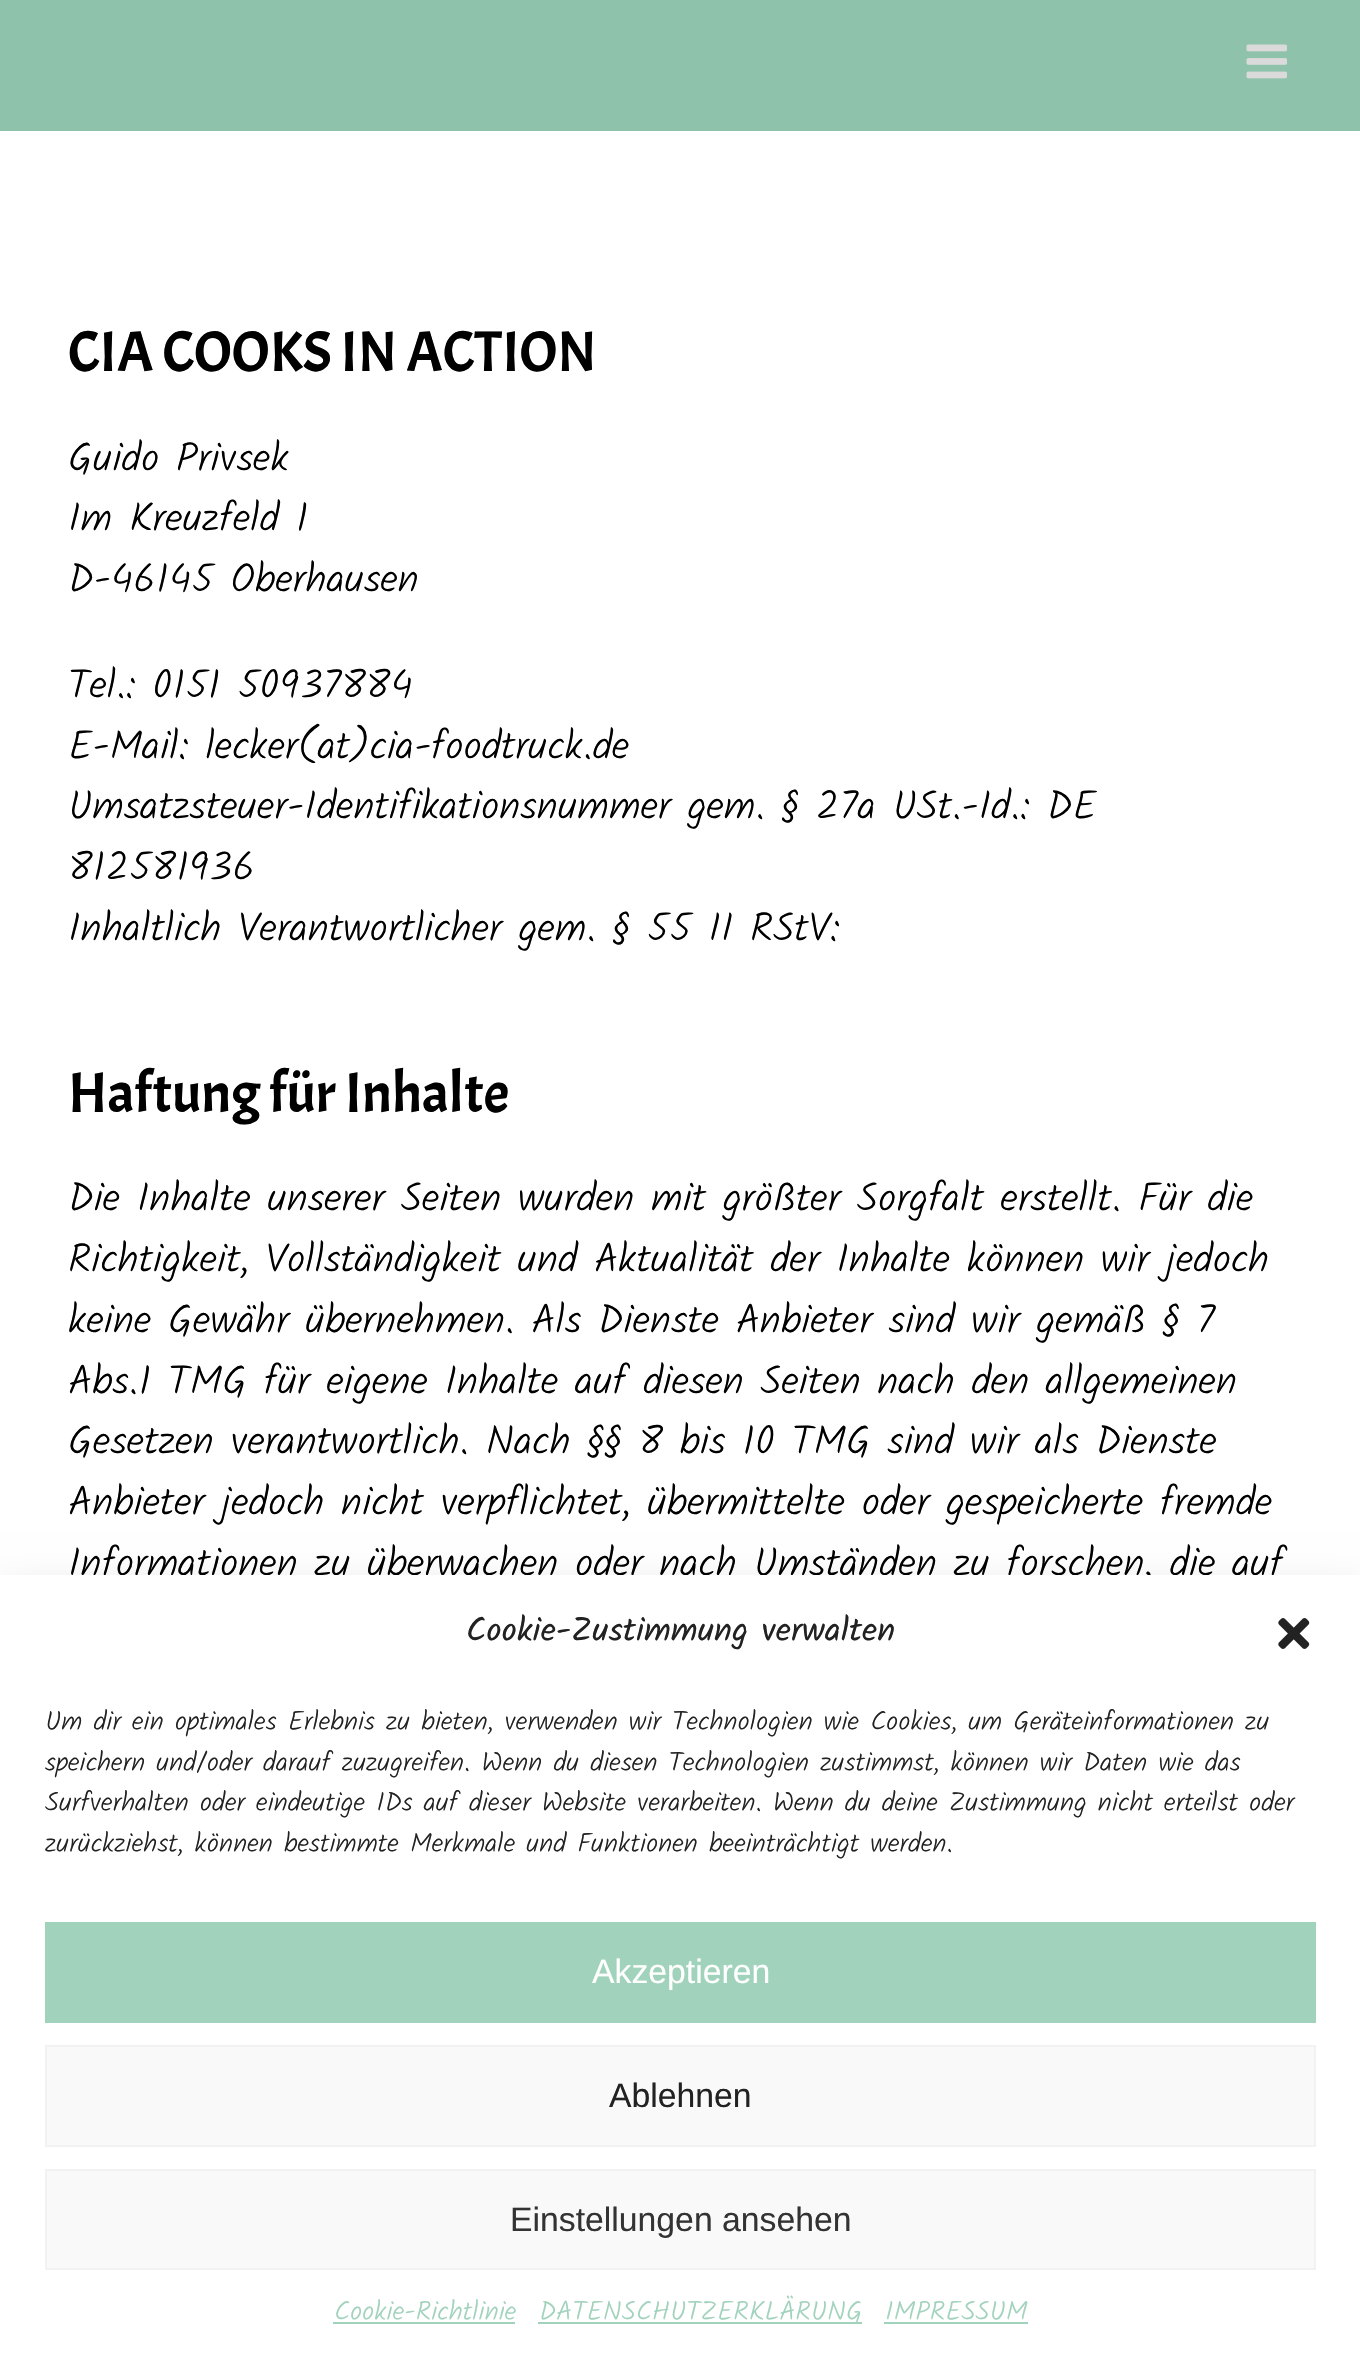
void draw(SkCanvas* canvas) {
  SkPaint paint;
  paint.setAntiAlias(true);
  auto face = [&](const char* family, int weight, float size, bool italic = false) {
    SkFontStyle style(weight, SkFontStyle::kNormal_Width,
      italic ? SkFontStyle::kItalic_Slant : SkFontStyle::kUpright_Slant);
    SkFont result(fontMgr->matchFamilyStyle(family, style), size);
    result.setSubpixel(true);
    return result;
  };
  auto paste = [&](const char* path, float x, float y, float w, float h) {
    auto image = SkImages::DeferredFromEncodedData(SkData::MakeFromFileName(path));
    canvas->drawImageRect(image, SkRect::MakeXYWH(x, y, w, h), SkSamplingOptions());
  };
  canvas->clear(0xffffffff);
  paint.setColor(0xff8ec2ab);
  canvas->drawRect(SkRect::MakeXYWH(0, 0, 1360, 131), paint);
  paste("img/1.png", 1246, 44, 41, 35);
  paint.setColor(0x30000000);
  paint.setMaskFilter(SkMaskFilter::MakeBlur(kNormal_SkBlurStyle, 22.5f));
  canvas->drawRect(SkRect::MakeXYWH(0, 1598, 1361, 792), paint);
  paint.setMaskFilter(nullptr);
  auto f0 = face("Acme", 400, 57.25f);
  paint.setColor(0xff000000);
  canvas->drawString("CIA COOKS IN ACTION", 68, 371, f0, paint);
  auto f1 = face("Kalam", 300, 40.5f);
  {
    const struct { const char* s; float x, y; } items[] = {
      {"Guido Privsek", 68, 471},
      {"Im Kreuzfeld 1", 68, 531},
      {"D-46145 Oberhausen", 68, 592},
      {"Tel.: 0151 50937884", 68, 698},
      {"E-Mail: lecker(at)cia-foodtruck.de", 68, 759},
      {"Umsatzsteuer-Identifikationsnummer gem. § 27a USt.-Id.: DE", 68, 819},
      {"812581936", 68, 880},
      {"Inhaltlich Verantwortlicher gem. § 55 II RStV:", 68, 941},
    };
    for (auto [s, x, y] : items) {
      canvas->drawString(s, x, y, f1, paint);
    }
  }
  canvas->drawString("Haftung für Inhalte", 68, 1112, f0, paint);
  {
    const struct { const char* s; float x, y; } items[] = {
      {"Die Inhalte unserer Seiten wurden mit größter Sorgfalt erstellt. Für die", 68, 1211},
      {"Richtigkeit, Vollständigkeit und Aktualität der Inhalte können wir jedoch", 68, 1272},
      {"keine Gewähr übernehmen. Als Dienste Anbieter sind wir gemäß § 7", 68, 1333},
      {"Abs.1 TMG für eigene Inhalte auf diesen Seiten nach den allgemeinen", 68, 1394},
      {"Gesetzen verantwortlich. Nach §§ 8 bis 10 TMG sind wir als Dienste", 68, 1454},
      {"Anbieter jedoch nicht verpflichtet, übermittelte oder gespeicherte fremde", 68, 1515},
      {"Informationen zu überwachen oder nach Umständen zu forschen, die auf", 68, 1576},
    };
    for (auto [s, x, y] : items) {
      canvas->drawString(s, x, y, f1, paint);
    }
  }
  paint.setColor(0xffffffff);
  canvas->drawRect(SkRect::MakeXYWH(0, 1575, 1360, 791), paint);
  auto f2 = face("Kalam", 400, 33.75f);
  paint.setColor(0xff222222);
  canvas->drawString("Cookie-Zustimmung verwalten", 466, 1641, f2, paint);
  paste("img/2.png", 1278, 1618, 32, 31);
  auto f3 = face("Kalam", 300, 27);
  {
    const struct { const char* s; float x, y; } items[] = {
      {"Um dir ein optimales Erlebnis zu bieten, verwenden wir Technologien wie Cookies, um Geräteinformationen zu", 45, 1730},
      {"speichern und/oder darauf zuzugreifen. Wenn du diesen Technologien zustimmst, können wir Daten wie das", 45, 1771},
      {"Surfverhalten oder eindeutige IDs auf dieser Website verarbeiten. Wenn du deine Zustimmung nicht erteilst oder", 45, 1811},
      {"zurückziehst, können bestimmte Merkmale und Funktionen beeinträchtigt werden.", 45, 1852},
    };
    for (auto [s, x, y] : items) {
      canvas->drawString(s, x, y, f3, paint);
    }
  }
  paint.setColor(0xffa1d2bc);
  canvas->drawRect(SkRect::MakeXYWH(45, 1922, 1271, 101), paint);
  auto f4 = face("Liberation Sans", 400, 33.75f);
  paint.setColor(0xffffffff);
  canvas->drawString("Akzeptieren", 592, 1983, f4, paint);
  paint.setColor(0xfff9f9f9);
  canvas->drawRect(SkRect::MakeXYWH(46, 2046, 1269, 100), paint);
  paint.setStroke(true);
  paint.setStrokeWidth(2);
  paint.setColor(0xfff2f2f2);
  canvas->drawRect(SkRect::MakeXYWH(46, 2046, 1269, 100), paint);
  paint.setStroke(false);
  paint.setColor(0xff222222);
  canvas->drawString("Ablehnen", 609, 2107, f4, paint);
  paint.setColor(0xfff9f9f9);
  canvas->drawRect(SkRect::MakeXYWH(46, 2170, 1269, 99), paint);
  paint.setStroke(true);
  paint.setColor(0xfff2f2f2);
  canvas->drawRect(SkRect::MakeXYWH(46, 2170, 1269, 99), paint);
  paint.setStroke(false);
  paint.setColor(0xff333333);
  canvas->drawString("Einstellungen ansehen", 510, 2231, f4, paint);
  paint.setColor(0xffa1d2bc);
  canvas->drawString("Cookie-Richtlinie", 334, 2320, f3, paint);
  canvas->drawRect(SkRect::MakeXYWH(333, 2322, 182, 2), paint);
  canvas->drawRect(SkRect::MakeXYWH(538, 2322, 324, 2), paint);
  canvas->drawString("DATENSCHUTZERKLÄRUNG", 539, 2320, f3, paint);
  canvas->drawString("IMPRESSUM", 885, 2320, f3, paint);
  canvas->drawRect(SkRect::MakeXYWH(884, 2322, 144, 2), paint);
}
